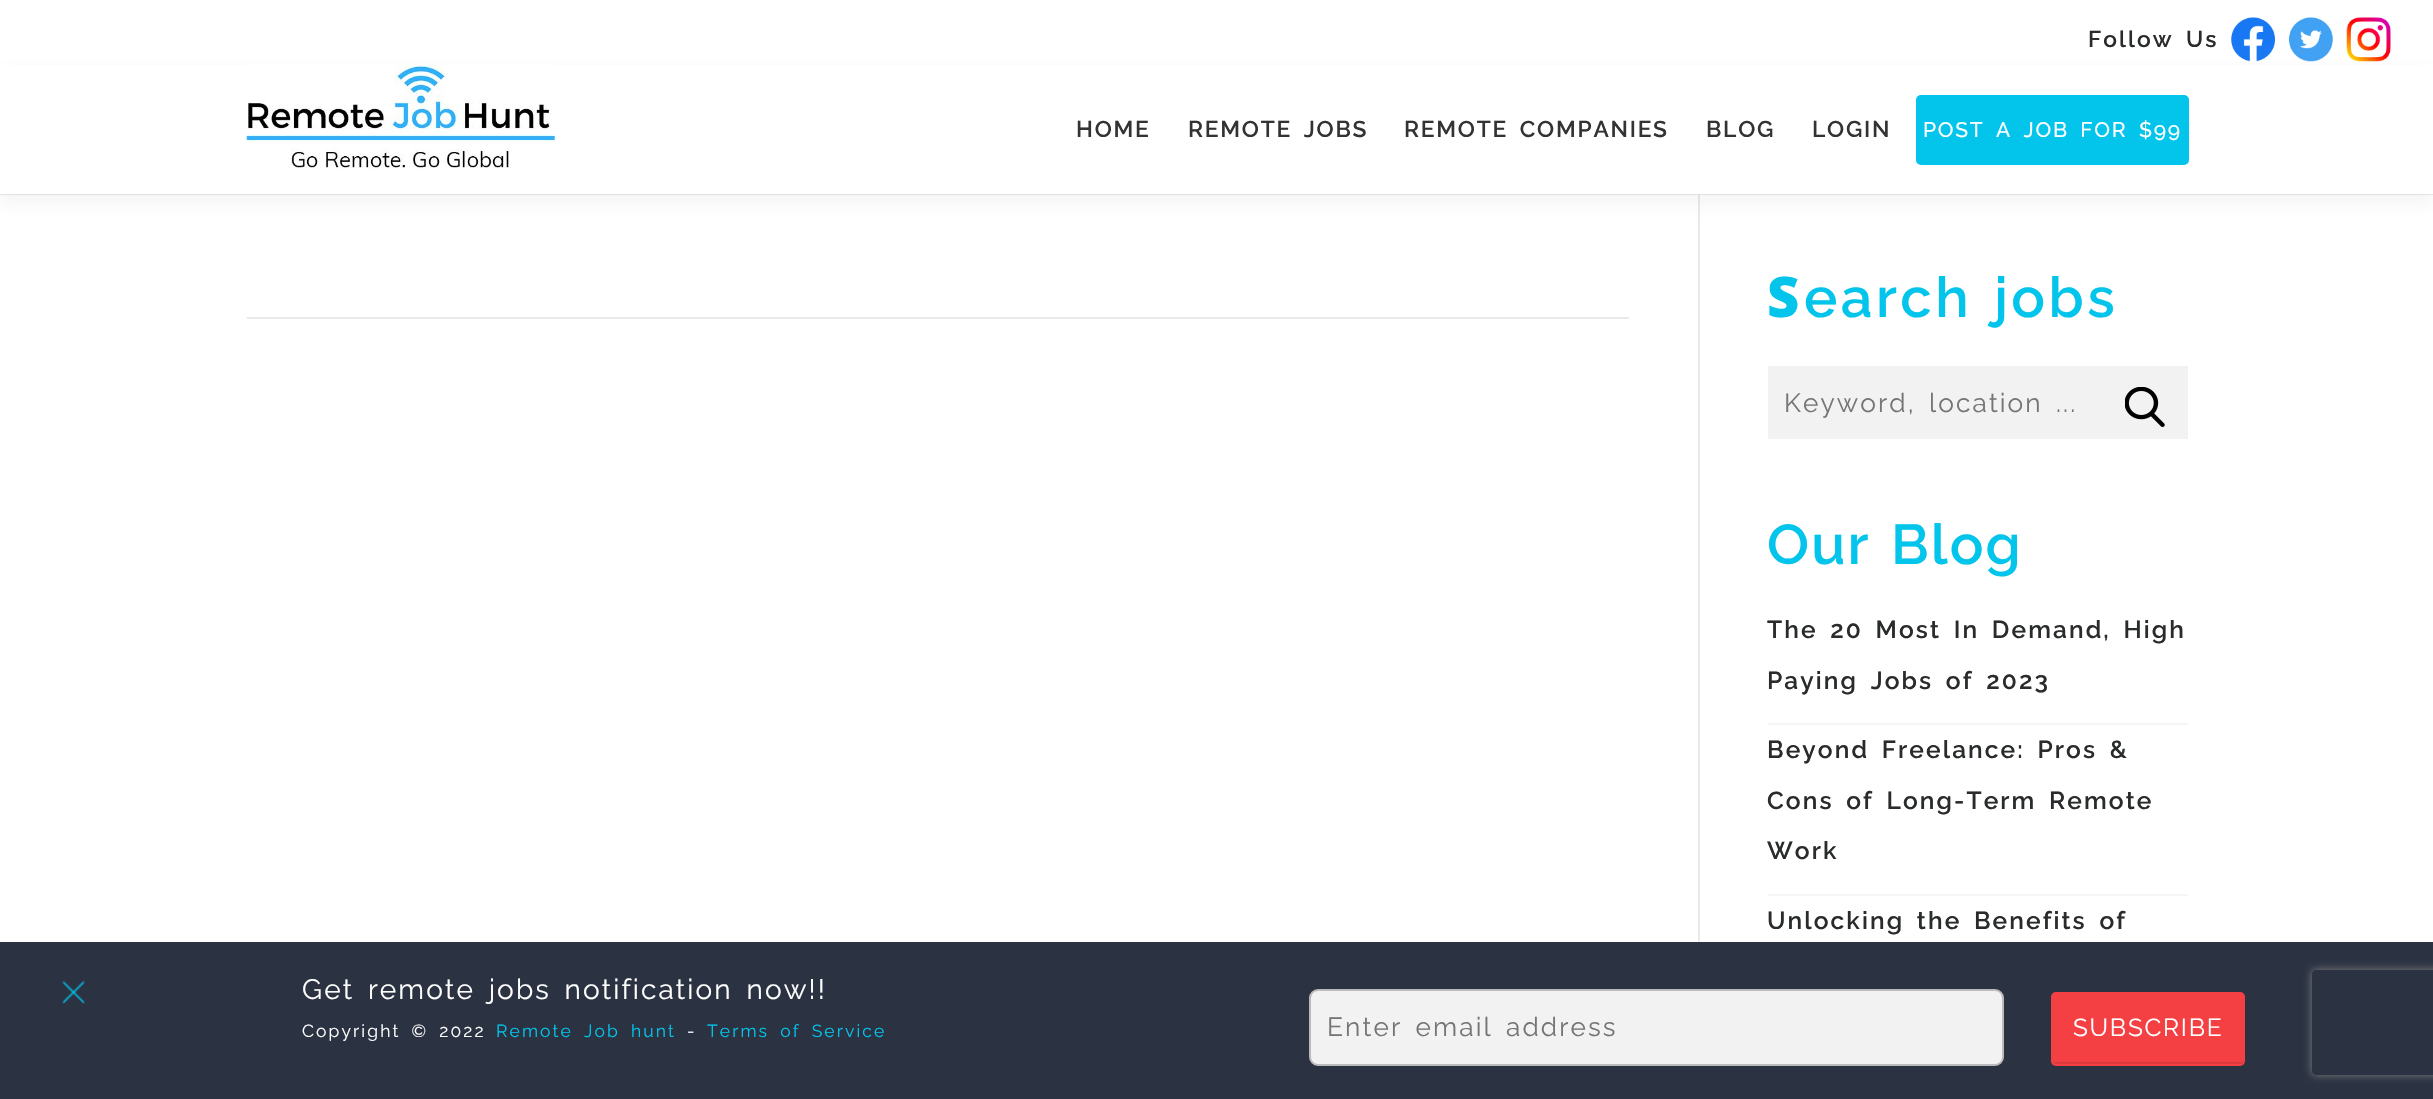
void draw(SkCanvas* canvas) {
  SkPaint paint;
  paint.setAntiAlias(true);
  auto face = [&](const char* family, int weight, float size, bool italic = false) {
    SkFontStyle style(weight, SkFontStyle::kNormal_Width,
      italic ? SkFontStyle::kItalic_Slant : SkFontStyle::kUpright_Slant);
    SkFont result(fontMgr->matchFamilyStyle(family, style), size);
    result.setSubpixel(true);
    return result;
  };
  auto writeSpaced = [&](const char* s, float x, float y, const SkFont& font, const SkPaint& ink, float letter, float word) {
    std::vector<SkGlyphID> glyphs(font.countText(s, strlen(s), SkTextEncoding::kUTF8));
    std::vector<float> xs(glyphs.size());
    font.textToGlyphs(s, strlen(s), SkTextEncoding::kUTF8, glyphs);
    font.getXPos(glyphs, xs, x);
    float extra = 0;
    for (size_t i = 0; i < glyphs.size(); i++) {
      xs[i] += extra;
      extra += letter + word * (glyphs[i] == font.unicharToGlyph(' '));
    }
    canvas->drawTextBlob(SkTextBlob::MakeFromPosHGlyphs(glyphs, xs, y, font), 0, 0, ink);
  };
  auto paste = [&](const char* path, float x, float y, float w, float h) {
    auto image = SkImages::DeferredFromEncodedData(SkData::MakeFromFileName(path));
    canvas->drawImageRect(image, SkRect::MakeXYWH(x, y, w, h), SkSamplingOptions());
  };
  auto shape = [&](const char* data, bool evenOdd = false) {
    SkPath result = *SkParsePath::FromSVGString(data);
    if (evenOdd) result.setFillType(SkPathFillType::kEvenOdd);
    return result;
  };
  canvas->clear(0xffffffff);
  paste("img/1.png", 2231, 17, 44, 45);
  paste("img/2.png", 2289, 17, 44, 45);
  paste("img/3.png", 2346, 17, 45, 45);
  paint.setColor(0xffe9e9e9);
  canvas->drawRect(SkRect::MakeXYWH(0, 194, 2433, 1), paint);
  canvas->drawRect(SkRect::MakeXYWH(1698, 194, 2, 748), paint);
  paint.setColor(0x0f323232);
  paint.setMaskFilter(SkMaskFilter::MakeBlur(kNormal_SkBlurStyle, 9));
  canvas->drawRect(SkRect::MakeXYWH(0, 72, 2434, 131), paint);
  paint.setMaskFilter(nullptr);
  paint.setColor(0xffffffff);
  canvas->drawRect(SkRect::MakeXYWH(0, 65, 2433, 129), paint);
  paste("img/4.png", 246, 64, 309, 105);
  paint.setColor(0xff03c4eb);
  canvas->drawRoundRect(SkRect::MakeXYWH(1916, 95, 273, 70), 5, 5, paint);
  paint.setColor(0xffe9e9e9);
  canvas->drawRect(SkRect::MakeXYWH(247, 317, 1382, 2), paint);
  paint.setColor(0xfff2f2f2);
  canvas->drawRect(SkRect::MakeXYWH(1768, 366, 420, 73), paint);
  paste("img/5.png", 2125, 387, 40, 40);
  {
    const struct { float x, y, w, h; SkColor color; } items[] = {
      {1768, 723, 420, 2, 0xfff5f5f5},
      {1768, 894, 420, 2, 0xfff5f5f5},
      {0, 942, 2433, 157, 0xff2b3242},
    };
    for (auto [x, y, w, h, color] : items) {
      paint.setColor(color);
      canvas->drawRect(SkRect::MakeXYWH(x, y, w, h), paint);
    }
  }
  paste("img/6.png", 62, 980, 23, 24);
  paint.setColor(0xfff2f2f2);
  canvas->drawRoundRect(SkRect::MakeXYWH(1310, 990, 693, 75), 8, 8, paint);
  paint.setStroke(true);
  paint.setStrokeWidth(2);
  paint.setColor(0xffbbbbbb);
  canvas->drawRoundRect(SkRect::MakeXYWH(1310, 990, 693, 75), 8, 8, paint);
  paint.setStroke(false);
  paint.setColor(0xfff44043);
  canvas->drawRoundRect(SkRect::MakeXYWH(2051, 992, 194, 74), 5, 5, paint);
  paint.setColor(0xffdc3a3c);
  canvas->drawPath(shape("M2053 1059C2053 1062 2054 1064 2057 1064H2241C2243 1063 2244 1061 2244 1059C2244 1061 2242 1062 2240 1062H2056C2054 1062 2053 1061 2053 1059Z"), paint);
  canvas->save();
  canvas->clipPath(shape("M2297 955H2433V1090H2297ZM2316 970H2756C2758 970 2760 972 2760 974V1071C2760 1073 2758 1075 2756 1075H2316C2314 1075 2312 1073 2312 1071V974C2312 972 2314 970 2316 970Z", true), true);
  paint.setColor(0xff808080);
  paint.setMaskFilter(SkMaskFilter::MakeBlur(kNormal_SkBlurStyle, 4.5f));
  canvas->drawRoundRect(SkRect::MakeXYWH(2312, 970, 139, 105), 4, 4, paint);
  paint.setMaskFilter(nullptr);
  canvas->restore();
  auto f0 = face("Raleway", 600, 22.75f);
  paint.setColor(0xff292b2c);
  writeSpaced("Follow Us", 2088, 47, f0, paint, 2.1f, 4.5f);
  paint.setColor(0xff333333);
  writeSpaced("HOME", 1076, 137, f0, paint, 1.75f, 0);
  writeSpaced("REMOTE JOBS", 1188, 137, f0, paint, 1.75f, 4.5f);
  writeSpaced("REMOTE COMPANIES", 1404, 137, f0, paint, 1.75f, 4.5f);
  writeSpaced("BLOG", 1706, 137, f0, paint, 1.75f, 0);
  writeSpaced("LOGIN", 1812, 137, f0, paint, 1.75f, 0);
  auto f1 = face("Raleway", 500, 21);
  paint.setColor(0xffffffff);
  writeSpaced("POST A JOB FOR $99", 1923, 137, f1, paint, 1.75f, 4.5f);
  auto f2 = face("Noto Sans", 900, 56);
  paint.setColor(0xff03c4eb);
  writeSpaced("S", 1767, 317, f2, paint, 3.5f, 0);
  auto f3 = face("Raleway", 600, 56);
  writeSpaced("earch jobs", 1804, 317, f3, paint, 3.5f, 4.5f);
  auto f4 = face("Raleway", 400, 26.25f);
  paint.setColor(0xff757575);
  writeSpaced("Keyword, location ...", 1784, 412, f4, paint, 2.1f, 4.5f);
  paint.setColor(0xff03c4eb);
  writeSpaced("Our Blog", 1767, 564, f3, paint, 2.1f, 4.5f);
  auto f5 = face("Raleway", 600, 24.5f);
  paint.setColor(0xff292b2c);
  {
    const struct { const char* s; float x, y; } items[] = {
      {"The 20 Most In Demand, High", 1767, 638},
      {"Paying Jobs of 2023", 1767, 689},
      {"Beyond Freelance: Pros &", 1767, 758},
      {"Cons of Long-Term Remote", 1767, 809},
    };
    for (auto [s, x, y] : items) {
      writeSpaced(s, x, y, f5, paint, 2.1f, 4.5f);
    }
  }
  writeSpaced("Work", 1767, 859, f5, paint, 2.1f, 0);
  writeSpaced("Unlocking the Benefits of", 1767, 929, f5, paint, 2.1f, 4.5f);
  auto f6 = face("Raleway", 400, 28);
  paint.setColor(0xffffffff);
  writeSpaced("Get remote jobs notification now!!", 302, 999, f6, paint, 2.1f, 4.5f);
  auto f7 = face("Raleway", 400, 17.5f);
  writeSpaced("Copyright © 2022", 302, 1037, f7, paint, 2.1f, 4.5f);
  paint.setColor(0xff03c4eb);
  writeSpaced("Remote Job hunt", 496, 1037, f7, paint, 2.1f, 4.5f);
  paint.setColor(0xffffffff);
  writeSpaced("-", 687, 1037, f7, paint, 2.1f, 0);
  paint.setColor(0xff03c4eb);
  writeSpaced("Terms of Service", 707, 1037, f7, paint, 2.1f, 4.5f);
  paint.setColor(0xff757575);
  writeSpaced("Enter email address", 1327, 1036, f4, paint, 2.1f, 4.5f);
  auto f8 = face("Raleway", 400, 24.5f);
  paint.setColor(0xffffffff);
  writeSpaced("SUBSCRIBE", 2073, 1036, f8, paint, 1.75f, 0);
}
